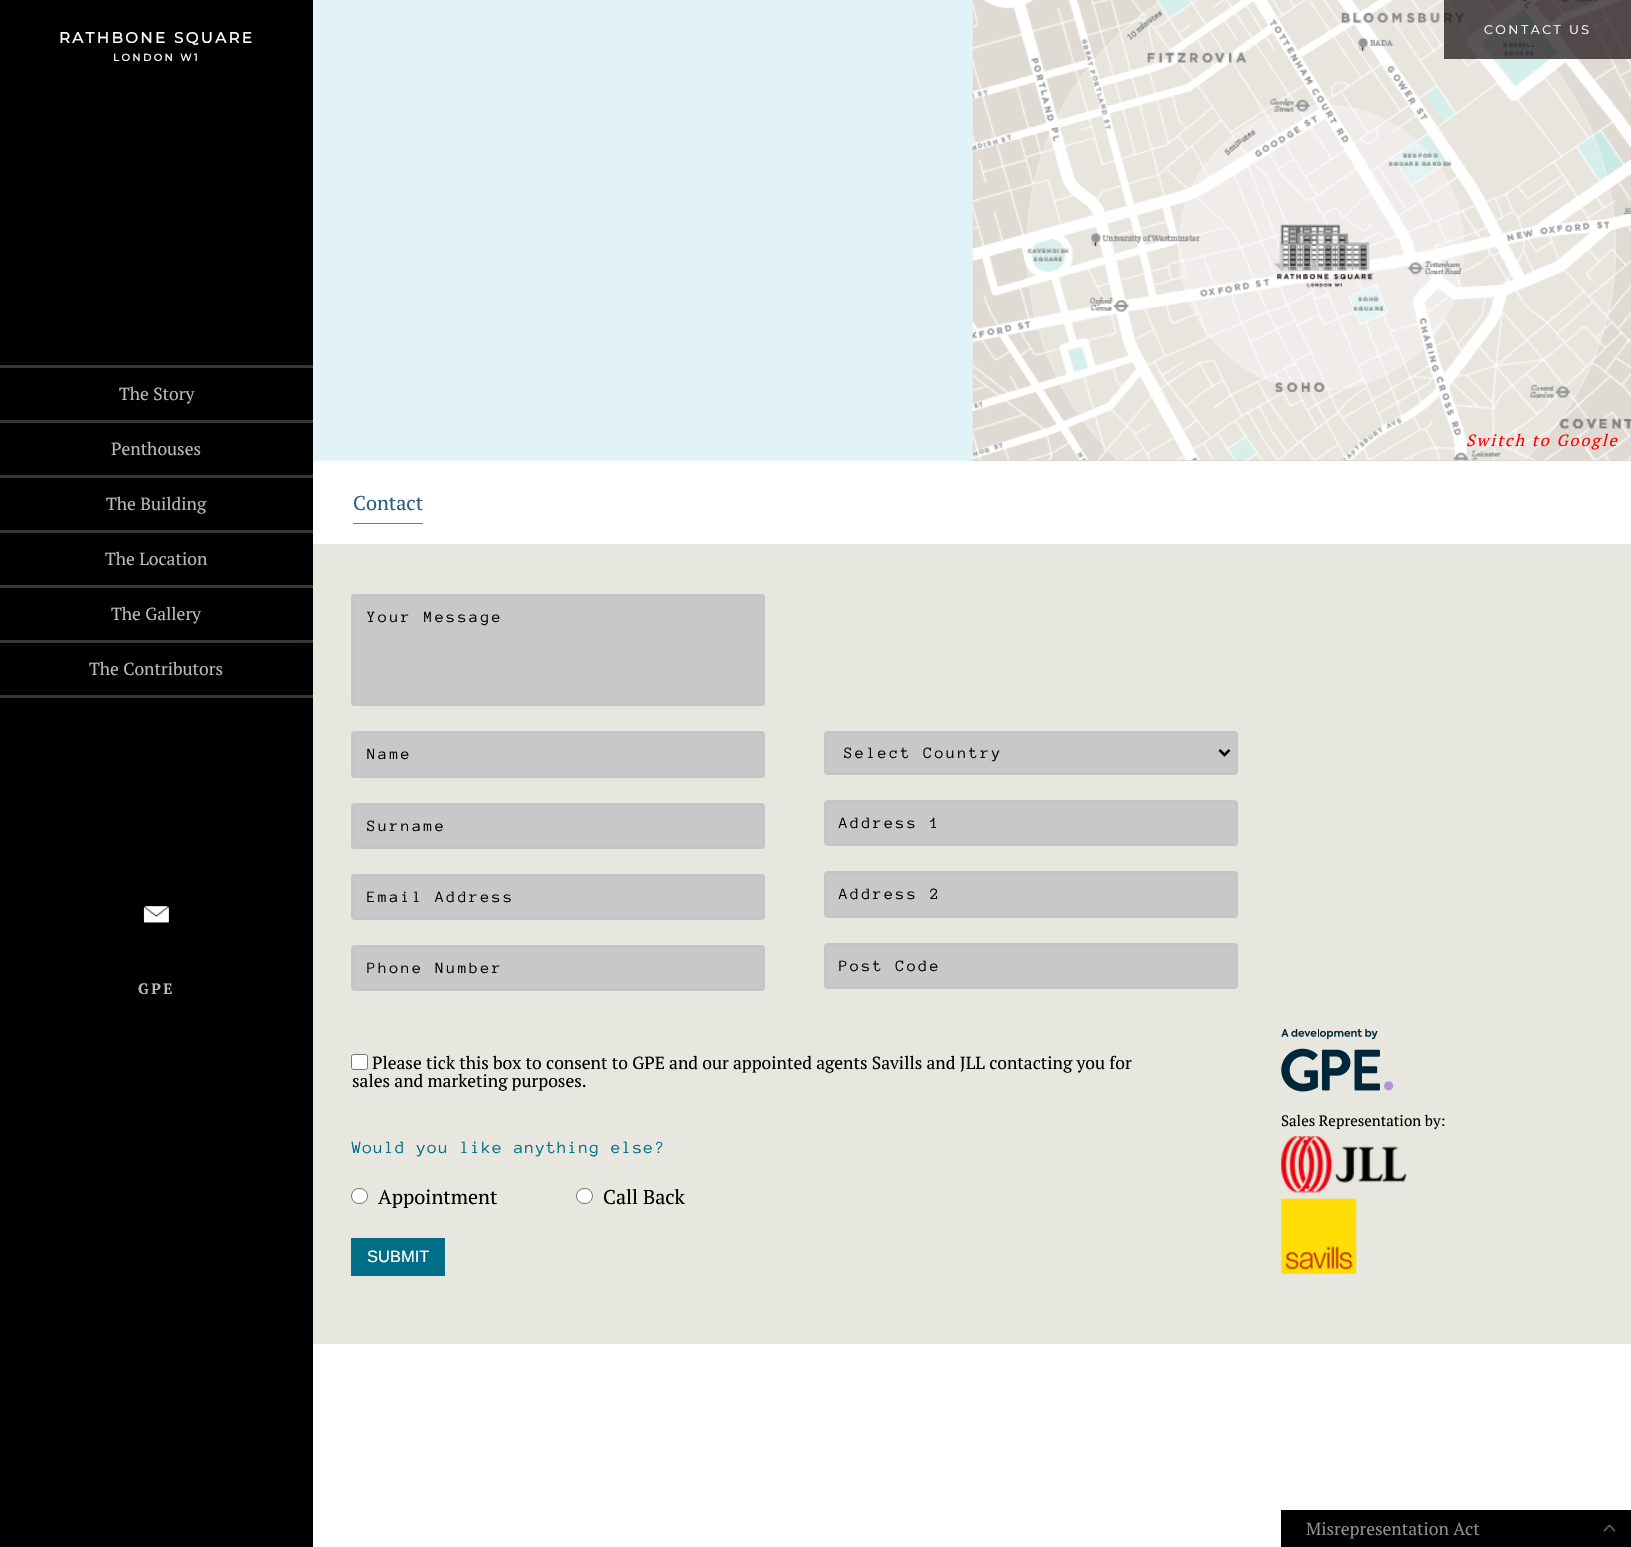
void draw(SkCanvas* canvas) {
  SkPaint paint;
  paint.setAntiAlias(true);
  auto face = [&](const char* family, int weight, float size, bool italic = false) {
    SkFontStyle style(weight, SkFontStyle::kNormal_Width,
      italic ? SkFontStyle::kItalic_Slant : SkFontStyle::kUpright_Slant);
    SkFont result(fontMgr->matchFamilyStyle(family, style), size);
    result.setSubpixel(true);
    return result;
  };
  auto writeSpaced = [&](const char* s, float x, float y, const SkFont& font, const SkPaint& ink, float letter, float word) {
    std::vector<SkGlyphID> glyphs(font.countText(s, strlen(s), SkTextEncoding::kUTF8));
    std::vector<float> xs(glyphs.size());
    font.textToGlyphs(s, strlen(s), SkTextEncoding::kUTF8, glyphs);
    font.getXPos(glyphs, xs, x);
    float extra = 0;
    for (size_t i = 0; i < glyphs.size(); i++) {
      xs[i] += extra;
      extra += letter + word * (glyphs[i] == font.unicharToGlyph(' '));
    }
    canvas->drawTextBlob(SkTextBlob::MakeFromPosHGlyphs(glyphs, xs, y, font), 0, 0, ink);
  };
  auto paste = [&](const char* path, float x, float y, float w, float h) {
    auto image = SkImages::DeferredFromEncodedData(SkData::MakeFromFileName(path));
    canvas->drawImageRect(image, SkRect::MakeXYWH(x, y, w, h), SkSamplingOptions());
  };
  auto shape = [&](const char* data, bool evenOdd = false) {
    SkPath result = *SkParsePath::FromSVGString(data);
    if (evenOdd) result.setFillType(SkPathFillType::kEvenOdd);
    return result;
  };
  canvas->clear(0xffffffff);
  paint.setColor(0xffe1f3f6);
  canvas->drawRect(SkRect::MakeXYWH(313, 0, 660, 461), paint);
  paste("img/2.png", 972, 0, 659, 461);
  {
    const struct { float x, y, w, h; SkColor color; } items[] = {
      {1444, 0, 187, 59, 0xb3140b0e},
      {0, 0, 313, 1547, 0xff000000},
      {0, 365, 313, 3, 0xff3a3235},
      {0, 420, 313, 3, 0xff3a3235},
      {0, 475, 313, 3, 0xff3a3235},
      {0, 530, 313, 3, 0xff3a3235},
      {0, 585, 313, 3, 0xff3a3235},
      {0, 640, 313, 3, 0xff3a3235},
      {0, 695, 313, 3, 0xff3a3235},
    };
    for (auto [x, y, w, h, color] : items) {
      paint.setColor(color);
      canvas->drawRect(SkRect::MakeXYWH(x, y, w, h), paint);
    }
  }
  paste("img/1.png", 143, 906, 26, 17);
  paint.setColor(0xffe64e36);
  canvas->drawRect(SkRect::MakeXYWH(353, 523, 70, 1), paint);
  paint.setColor(0xffe7e7df);
  canvas->drawRect(SkRect::MakeXYWH(313, 544, 1318, 800), paint);
  paint.setColor(0xffc6c8ca);
  canvas->drawRoundRect(SkRect::MakeXYWH(352.5f, 595.5f, 411, 109), 2.5f, 2.5f, paint);
  paint.setStroke(true);
  paint.setStrokeWidth(3);
  paint.setColor(0xffc4c5c4);
  canvas->drawRoundRect(SkRect::MakeXYWH(352.5f, 595.5f, 411, 109), 2.5f, 2.5f, paint);
  paint.setStroke(false);
  paint.setColor(0xffc6c8ca);
  canvas->drawRoundRect(SkRect::MakeXYWH(352.5f, 732.5f, 411, 44), 2.5f, 2.5f, paint);
  paint.setStroke(true);
  paint.setColor(0xffc4c5c4);
  canvas->drawRoundRect(SkRect::MakeXYWH(352.5f, 732.5f, 411, 44), 2.5f, 2.5f, paint);
  paint.setStroke(false);
  paint.setColor(0xffc6c8ca);
  canvas->drawRoundRect(SkRect::MakeXYWH(352.5f, 804.5f, 411, 43), 2.5f, 2.5f, paint);
  paint.setStroke(true);
  paint.setColor(0xffc4c5c4);
  canvas->drawRoundRect(SkRect::MakeXYWH(352.5f, 804.5f, 411, 43), 2.5f, 2.5f, paint);
  paint.setStroke(false);
  paint.setColor(0xffc6c8ca);
  canvas->drawRoundRect(SkRect::MakeXYWH(352.5f, 875.5f, 411, 43), 2.5f, 2.5f, paint);
  paint.setStroke(true);
  paint.setColor(0xffc4c5c4);
  canvas->drawRoundRect(SkRect::MakeXYWH(352.5f, 875.5f, 411, 43), 2.5f, 2.5f, paint);
  paint.setStroke(false);
  paint.setColor(0xffc6c8ca);
  canvas->drawRoundRect(SkRect::MakeXYWH(352.5f, 946.5f, 411, 43), 2.5f, 2.5f, paint);
  paint.setStroke(true);
  paint.setColor(0xffc4c5c4);
  canvas->drawRoundRect(SkRect::MakeXYWH(352.5f, 946.5f, 411, 43), 2.5f, 2.5f, paint);
  paint.setStroke(false);
  paint.setColor(0xffc6c8ca);
  canvas->drawRoundRect(SkRect::MakeXYWH(825.5f, 732.5f, 411, 41), 2.5f, 2.5f, paint);
  paint.setStroke(true);
  paint.setColor(0xffc4c5c4);
  canvas->drawRoundRect(SkRect::MakeXYWH(825.5f, 732.5f, 411, 41), 2.5f, 2.5f, paint);
  paint.setStrokeWidth(2.5f);
  paint.setColor(0xff000000);
  canvas->drawPath(shape("M1219.5 750L1224.5 755L1229.5 750"), paint);
  paint.setStroke(false);
  paint.setColor(0xffc6c8ca);
  canvas->drawRoundRect(SkRect::MakeXYWH(825.5f, 801.5f, 411, 43), 2.5f, 2.5f, paint);
  paint.setStroke(true);
  paint.setStrokeWidth(3);
  paint.setColor(0xffc4c5c4);
  canvas->drawRoundRect(SkRect::MakeXYWH(825.5f, 801.5f, 411, 43), 2.5f, 2.5f, paint);
  paint.setStroke(false);
  paint.setColor(0xffc6c8ca);
  canvas->drawRoundRect(SkRect::MakeXYWH(825.5f, 872.5f, 411, 44), 2.5f, 2.5f, paint);
  paint.setStroke(true);
  paint.setColor(0xffc4c5c4);
  canvas->drawRoundRect(SkRect::MakeXYWH(825.5f, 872.5f, 411, 44), 2.5f, 2.5f, paint);
  paint.setStroke(false);
  paint.setColor(0xffc6c8ca);
  canvas->drawRoundRect(SkRect::MakeXYWH(825.5f, 944.5f, 411, 43), 2.5f, 2.5f, paint);
  paint.setStroke(true);
  paint.setColor(0xffc4c5c4);
  canvas->drawRoundRect(SkRect::MakeXYWH(825.5f, 944.5f, 411, 43), 2.5f, 2.5f, paint);
  paint.setStroke(false);
  paint.setColor(0xffffffff);
  canvas->drawRoundRect(SkRect::MakeXYWH(351.5f, 1054.5f, 16, 15), 2, 2, paint);
  paint.setStroke(true);
  paint.setStrokeWidth(1);
  paint.setColor(0xff767676);
  canvas->drawRoundRect(SkRect::MakeXYWH(351.5f, 1054.5f, 16, 15), 2, 2, paint);
  paint.setStroke(false);
  paint.setColor(0xffffffff);
  canvas->drawRoundRect(SkRect::MakeXYWH(351.5f, 1188.5f, 16, 15), 7.5f, 7.5f, paint);
  paint.setStroke(true);
  paint.setColor(0xff767676);
  canvas->drawRoundRect(SkRect::MakeXYWH(351.5f, 1188.5f, 16, 15), 7.5f, 7.5f, paint);
  paint.setStroke(false);
  paint.setColor(0xffffffff);
  canvas->drawRoundRect(SkRect::MakeXYWH(576.5f, 1188.5f, 16, 15), 7.5f, 7.5f, paint);
  paint.setStroke(true);
  paint.setColor(0xff767676);
  canvas->drawRoundRect(SkRect::MakeXYWH(576.5f, 1188.5f, 16, 15), 7.5f, 7.5f, paint);
  paint.setStroke(false);
  paint.setColor(0xff006e86);
  canvas->drawRect(SkRect::MakeXYWH(351, 1238, 94, 38), paint);
  paste("img/3.png", 1281, 1029, 113, 63);
  paste("img/4.png", 1281, 1136, 126, 57);
  paste("img/5.png", 1281, 1198, 76, 76);
  paint.setColor(0xff000000);
  canvas->drawRect(SkRect::MakeXYWH(1281, 1510, 350, 37), paint);
  paste("img/6.png", 1603, 1524, 13, 8);
  auto f0 = face("Montserrat", 100, 12.5f);
  paint.setColor(0xffffffff);
  writeSpaced("CONTACT US", 1484, 34, f0, paint, 2.5f, 0);
  auto f1 = face("Montserrat", 700, 15);
  writeSpaced("RATHBONE SQUARE", 59, 43, f1, paint, 2.5f, 0);
  auto f2 = face("Montserrat", 700, 10);
  writeSpaced("LONDON W1", 113, 61, f2, paint, 2.5f, 0);
  auto f3 = face("PT Serif", 400, 17.5f);
  paint.setColor(0xffbab9b9);
  {
    const struct { const char* s; float x, y; } items[] = {
      {"The Story", 119, 400},
      {"Penthouses", 111, 455},
      {"The Building", 106, 510},
      {"The Location", 105, 565},
      {"The Gallery", 111, 620},
      {"The Contributors", 89, 675},
    };
    for (auto [s, x, y] : items) {
      canvas->drawString(s, x, y, f3, paint);
    }
  }
  auto f4 = face("PT Serif", 700, 15);
  writeSpaced("GPE", 138, 994, f4, paint, 2.5f, 0);
  auto f5 = face("PT Serif", 400, 16.25f, true);
  paint.setColor(0xffff0000);
  writeSpaced("Switch to Google", 1466, 446, f5, paint, 1.9f, 0);
  auto f6 = face("PT Serif", 400, 20);
  paint.setColor(0xff2b5c7e);
  canvas->drawString("Contact", 353, 510, f6, paint);
  auto f7 = face("Anonymous Pro", 400, 16.25f);
  paint.setColor(0xff000000);
  {
    const struct { const char* s; float x, y; } items[] = {
      {"Your Message", 367, 622},
      {"Name", 367, 759},
      {"Surname", 367, 831},
      {"Email Address", 367, 902},
      {"Phone Number", 367, 973},
      {"Select Country", 844, 758},
      {"Address 1", 839, 828},
      {"Address 2", 839, 899},
      {"Post Code", 839, 971},
    };
    for (auto [s, x, y] : items) {
      writeSpaced(s, x, y, f7, paint, 2.5f, 0);
    }
  }
  canvas->drawString("Please tick this box to consent to GPE and our appointed agents Savills and JLL contacting you for", 372, 1069, f3, paint);
  canvas->drawString("sales and marketing purposes.", 352, 1087, f3, paint);
  auto f8 = face("Anonymous Pro", 400, 17.5f);
  paint.setColor(0xff006e86);
  writeSpaced("Would you like anything else?", 352, 1153, f8, paint, 1.25f, 0);
  paint.setColor(0xff000000);
  canvas->drawString("Appointment", 378, 1204, f6, paint);
  canvas->drawString("Call Back", 603, 1204, f6, paint);
  auto f9 = face("Liberation Sans", 400, 16.5f);
  paint.setColor(0xffffffff);
  canvas->drawString("SUBMIT", 367, 1262, f9, paint);
  auto f10 = face("PT Serif", 400, 15);
  paint.setColor(0xff000000);
  canvas->drawString("Sales Representation by:", 1281, 1126, f10, paint);
  paint.setColor(0xff90908c);
  canvas->drawString("Misrepresentation Act", 1306, 1535, f3, paint);
}
